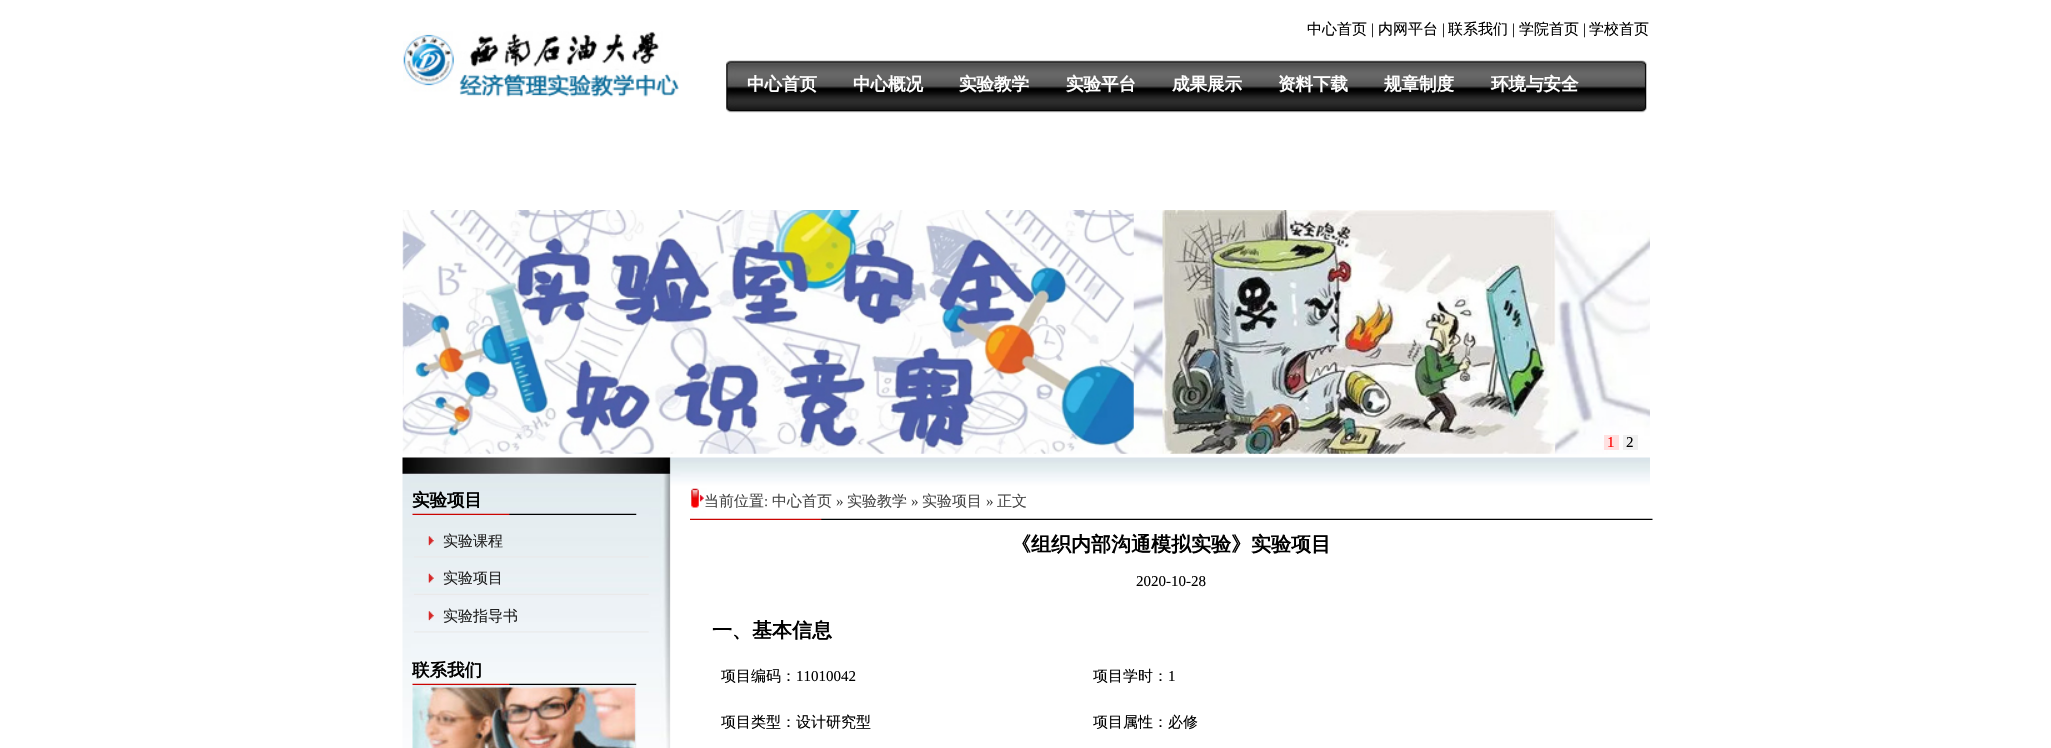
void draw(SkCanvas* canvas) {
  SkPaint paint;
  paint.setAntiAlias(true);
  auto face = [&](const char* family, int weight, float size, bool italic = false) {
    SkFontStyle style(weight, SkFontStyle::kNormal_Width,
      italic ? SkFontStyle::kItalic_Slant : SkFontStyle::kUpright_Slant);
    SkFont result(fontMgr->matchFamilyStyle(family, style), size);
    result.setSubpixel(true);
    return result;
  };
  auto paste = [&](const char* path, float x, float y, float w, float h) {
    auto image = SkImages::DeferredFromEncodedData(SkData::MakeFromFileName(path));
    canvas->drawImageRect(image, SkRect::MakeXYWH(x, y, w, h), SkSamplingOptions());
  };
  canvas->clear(0xffffffff);
  paste("img/1.png", 403, 31, 276, 66);
  paste("img/2.png", 726, 60, 921, 53);
  paste("img/3.png", 402, 210, 1248, 244);
  paint.setColor(0xffffe1e1);
  canvas->drawRect(SkRect::MakeXYWH(1604, 435, 15, 15), paint);
  paint.setColor(0xfff0f0f0);
  canvas->drawRect(SkRect::MakeXYWH(1623, 435, 15, 15), paint);
  paste("img/4.png", 402, 457, 1248, 291);
  paste("img/5.png", 412, 513, 225, 2);
  paste("img/6.png", 414, 536, 235, 22);
  paste("img/7.png", 414, 573, 235, 22);
  paste("img/8.png", 414, 611, 235, 22);
  paste("img/9.png", 412, 683, 225, 2);
  paste("img/10.png", 412, 685, 225, 63);
  paste("img/11.png", 690, 488, 963, 32);
  auto f0 = face("WenQuanYi Zen Hei", 500, 15);
  paint.setColor(0xff000000);
  canvas->drawString("中心首页", 1307, 34, f0, paint);
  auto f1 = face("Liberation Serif", 400, 15);
  canvas->drawString("|", 1371, 34, f1, paint);
  canvas->drawString("内网平台", 1378, 34, f0, paint);
  canvas->drawString("|", 1442, 34, f1, paint);
  canvas->drawString("联系我们", 1448, 34, f0, paint);
  canvas->drawString("|", 1512, 34, f1, paint);
  canvas->drawString("学院首页", 1519, 34, f0, paint);
  canvas->drawString("|", 1583, 34, f1, paint);
  canvas->drawString("学校首页", 1589, 34, f0, paint);
  auto f2 = face("WenQuanYi Zen Hei", 700, 17.5f);
  paint.setColor(0xffffffff);
  {
    const struct { const char* s; float x, y; } items[] = {
      {"中心首页", 747, 90},
      {"中心概况", 853, 90},
      {"实验教学", 959, 90},
      {"实验平台", 1066, 90},
      {"成果展示", 1172, 90},
      {"资料下载", 1278, 90},
      {"规章制度", 1384, 90},
      {"环境与安全", 1491, 90},
    };
    for (auto [s, x, y] : items) {
      canvas->drawString(s, x, y, f2, paint);
    }
  }
  paint.setColor(0xffff0000);
  canvas->drawString("1", 1607, 447, f1, paint);
  paint.setColor(0xff000000);
  canvas->drawString("2", 1626, 447, f1, paint);
  canvas->drawString("实验项目", 412, 506, f2, paint);
  paint.setColor(0xff202020);
  {
    const struct { const char* s; float x, y; } items[] = {
      {"实验课程", 443, 546},
      {"实验项目", 443, 583},
      {"实验指导书", 443, 621},
    };
    for (auto [s, x, y] : items) {
      canvas->drawString(s, x, y, f0, paint);
    }
  }
  paint.setColor(0xff000000);
  canvas->drawString("联系我们", 412, 676, f2, paint);
  paint.setColor(0xff464646);
  canvas->drawString("当前位置", 704, 506, f0, paint);
  canvas->drawString(":", 764, 506, f1, paint);
  canvas->drawString("中心首页", 772, 506, f0, paint);
  canvas->drawString("»", 836, 506, f1, paint);
  canvas->drawString("实验教学", 847, 506, f0, paint);
  canvas->drawString("»", 911, 506, f1, paint);
  canvas->drawString("实验项目", 922, 506, f0, paint);
  canvas->drawString("»", 986, 506, f1, paint);
  canvas->drawString("正文", 997, 506, f0, paint);
  auto f3 = face("WenQuanYi Zen Hei", 700, 20);
  paint.setColor(0xff000000);
  canvas->drawString("《组织内部沟通模拟实验》实验项目", 1011, 551, f3, paint);
  canvas->drawString("2020-10-28", 1136, 586, f1, paint);
  canvas->drawString("一、基本信息", 712, 637, f3, paint);
  canvas->drawString("项目编码：", 721, 681, f0, paint);
  canvas->drawString("11010042", 796, 681, f1, paint);
  canvas->drawString("项目学时：", 1093, 681, f0, paint);
  canvas->drawString("1", 1168, 681, f1, paint);
  canvas->drawString("项目类型：设计研究型", 721, 727, f0, paint);
  canvas->drawString("项目属性：必修", 1093, 727, f0, paint);
}
